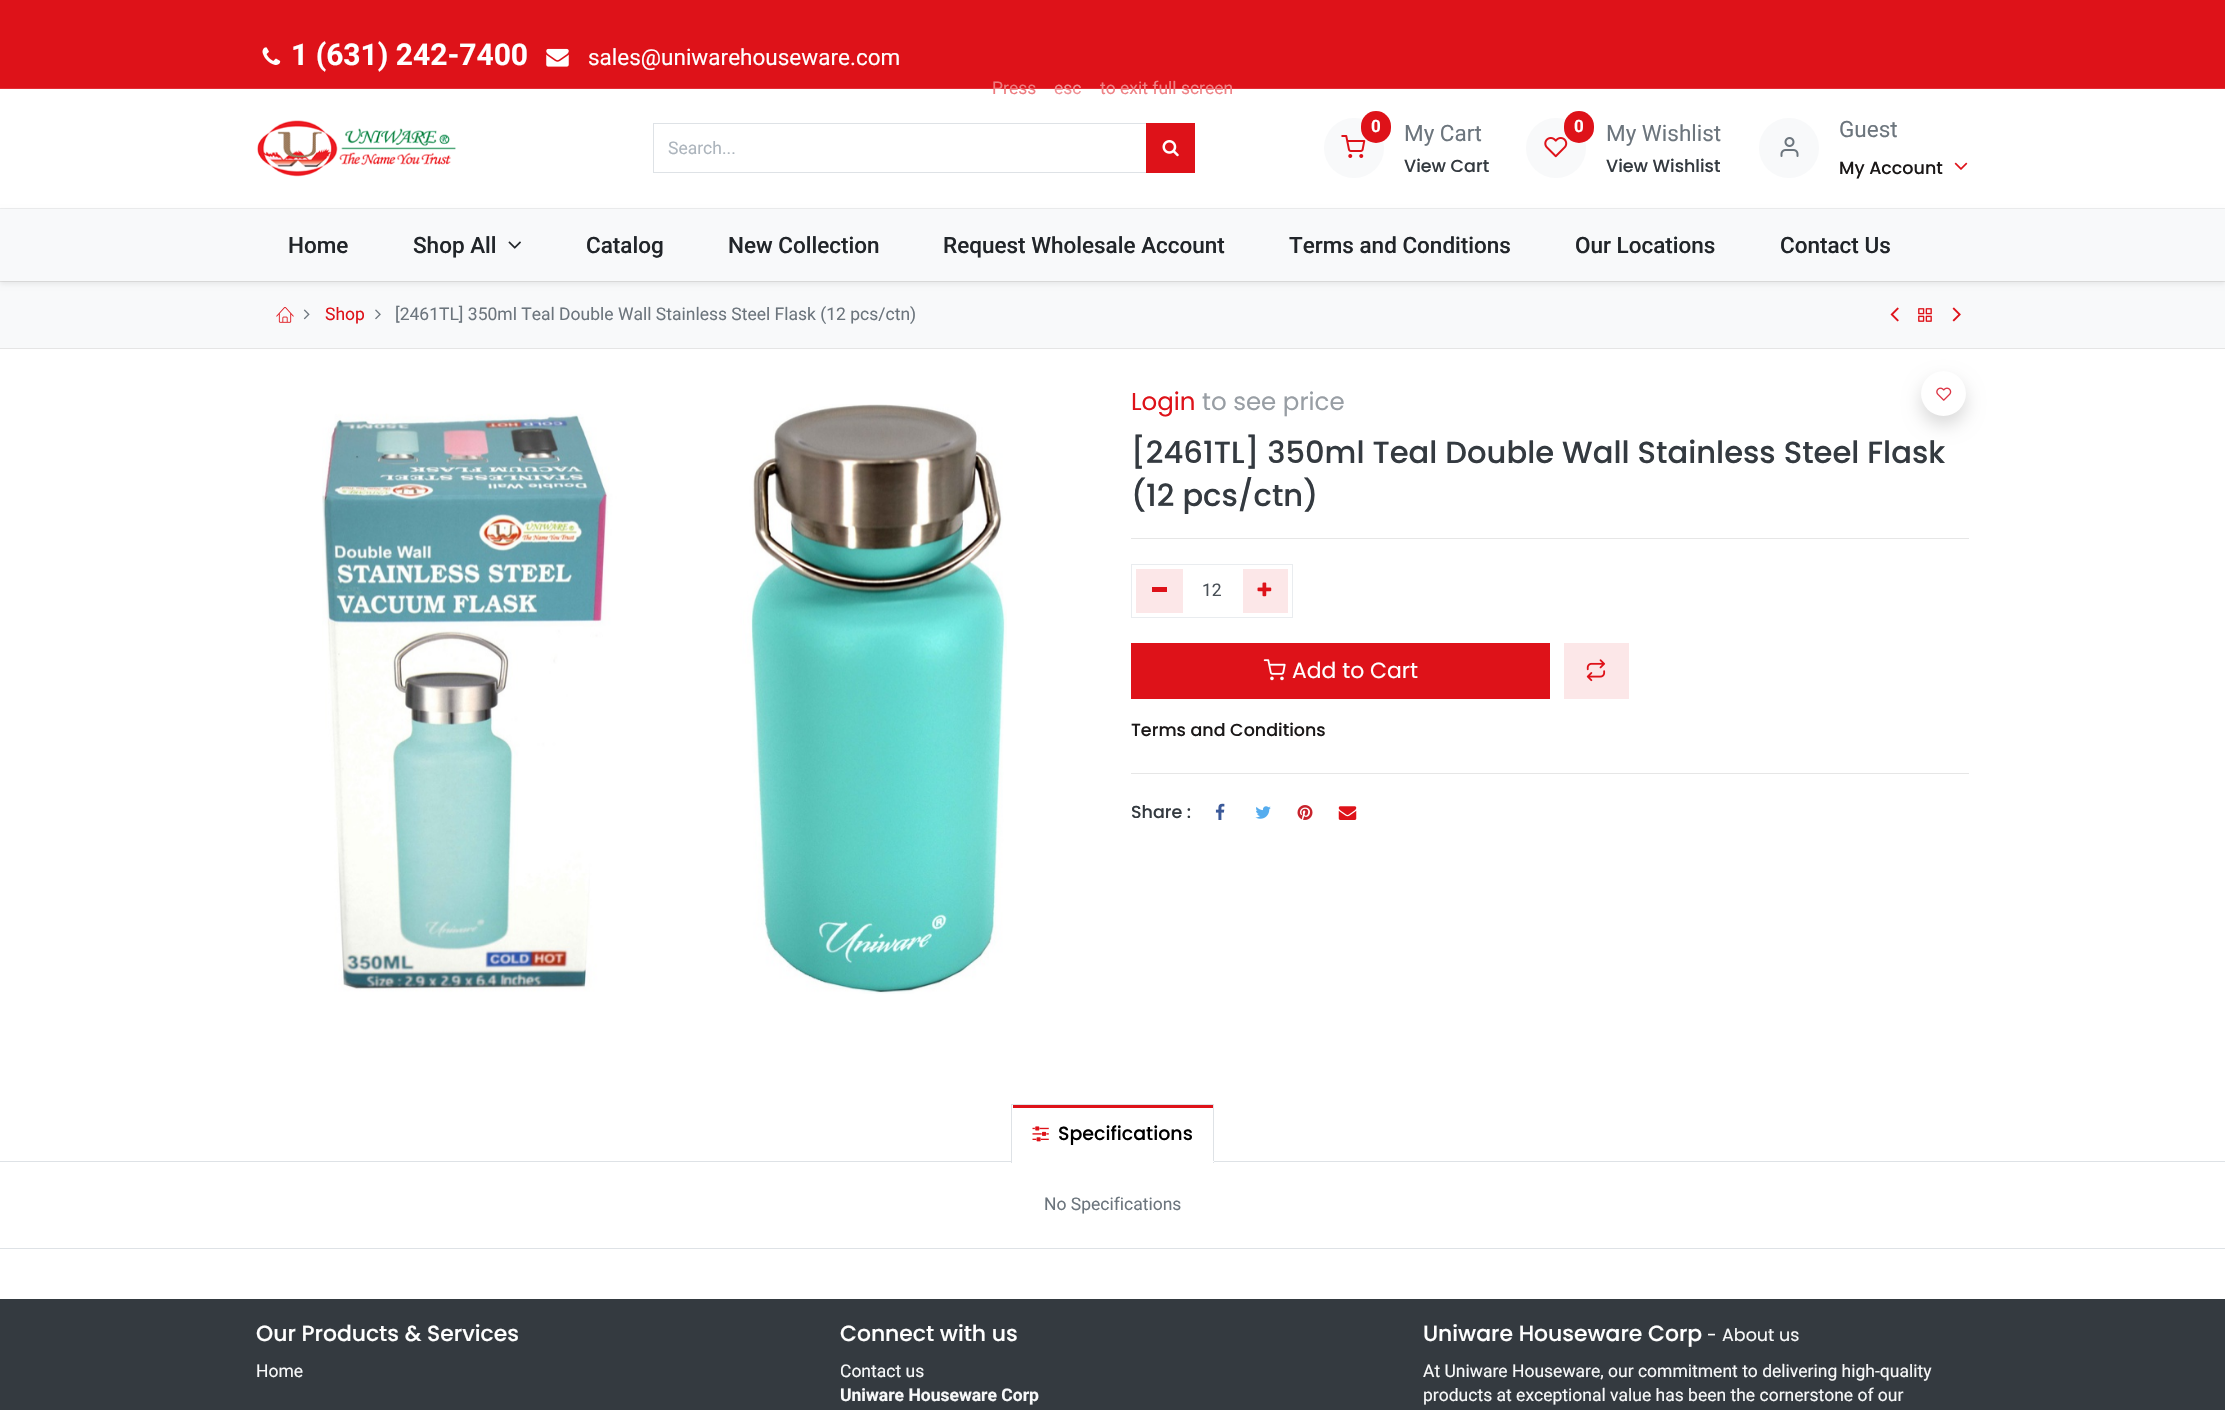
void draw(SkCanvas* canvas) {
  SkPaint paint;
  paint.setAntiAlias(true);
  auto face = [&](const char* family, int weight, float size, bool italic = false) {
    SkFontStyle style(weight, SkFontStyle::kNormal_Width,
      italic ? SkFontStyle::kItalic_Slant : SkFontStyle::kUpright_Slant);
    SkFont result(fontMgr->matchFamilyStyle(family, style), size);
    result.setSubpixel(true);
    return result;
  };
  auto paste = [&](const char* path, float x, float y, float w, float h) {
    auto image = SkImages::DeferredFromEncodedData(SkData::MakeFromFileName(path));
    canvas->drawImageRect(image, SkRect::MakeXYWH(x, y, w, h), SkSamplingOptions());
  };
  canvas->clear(0xffffffff);
  paint.setColor(0xffde1219);
  canvas->drawRect(SkRect::MakeXYWH(0, 0, 2225, 88), paint);
  paint.setColor(0xffe22e35);
  canvas->drawRect(SkRect::MakeXYWH(0, 88, 2225, 1), paint);
  paste("img/1.png", 262, 47, 19, 18);
  paste("img/2.png", 546, 48, 23, 19);
  paint.setColor(0xffedeeef);
  canvas->drawRect(SkRect::MakeXYWH(0, 208, 2225, 1), paint);
  paste("img/3.png", 257, 120, 199, 57);
  paint.setStroke(true);
  paint.setStrokeWidth(1);
  paint.setColor(0xffdee2e6);
  canvas->drawRect(SkRect::MakeXYWH(653.5f, 123.5f, 494, 49), paint);
  paint.setStroke(false);
  paint.setColor(0xffde1219);
  canvas->drawRect(SkRect::MakeXYWH(1146, 123, 49, 50), paint);
  paste("img/4.png", 1162, 140, 17, 17);
  paint.setColor(0xfff8f9fa);
  canvas->drawCircle(1354, 148, 30, paint);
  paste("img/5.png", 1341, 135, 25, 23);
  paint.setColor(0xffde1219);
  canvas->drawRoundRect(SkRect::MakeXYWH(1361, 111, 30, 32), 15, 15, paint);
  paint.setColor(0xfff8f9fa);
  canvas->drawCircle(1556, 148, 30, paint);
  paste("img/6.png", 1544, 137, 24, 21);
  paint.setColor(0xffde1219);
  canvas->drawRoundRect(SkRect::MakeXYWH(1564, 111, 30, 32), 15, 15, paint);
  paint.setColor(0xfff8f9fa);
  canvas->drawCircle(1789, 148, 30, paint);
  paste("img/7.png", 1780, 137, 19, 20);
  paste("img/8.png", 1954, 162, 14, 8);
  canvas->drawRect(SkRect::MakeXYWH(0, 282, 2225, 66), paint);
  paint.setColor(0xffe5e5e5);
  canvas->drawRect(SkRect::MakeXYWH(0, 281, 2225, 1), paint);
  paint.setColor(0x12000000);
  paint.setMaskFilter(SkMaskFilter::MakeBlur(kNormal_SkBlurStyle, 2.5f));
  canvas->drawRect(SkRect::MakeXYWH(0, 211, 2225, 73), paint);
  paint.setMaskFilter(nullptr);
  paint.setColor(0xfff8f9fa);
  canvas->drawRect(SkRect::MakeXYWH(0, 209, 2225, 72), paint);
  paste("img/9.png", 508, 241, 13, 8);
  paint.setColor(0xffe5e5e5);
  canvas->drawRect(SkRect::MakeXYWH(0, 348, 2225, 1), paint);
  paste("img/10.png", 276, 307, 18, 16);
  paste("img/11.png", 303, 309, 7, 11);
  paste("img/12.png", 375, 309, 6, 11);
  paste("img/13.png", 1890, 307, 9, 15);
  paste("img/14.png", 1918, 308, 14, 14);
  paste("img/15.png", 1952, 307, 9, 15);
  paste("img/16.png", 322, 404, 685, 590);
  paint.setColor(0xffe6e6e6);
  canvas->drawRect(SkRect::MakeXYWH(1131, 538, 838, 1), paint);
  paint.setStroke(true);
  paint.setColor(0xffe9ecef);
  canvas->drawRect(SkRect::MakeXYWH(1131.5f, 564.5f, 161, 53), paint);
  paint.setStroke(false);
  {
    const struct { float x, y, w, h; SkColor color; } items[] = {
      {1136, 569, 47, 44, 0xfffce7e8},
      {1152, 587, 15, 5, 0xffde1219},
      {1243, 569, 45, 44, 0xfffce7e8},
    };
    for (auto [x, y, w, h, color] : items) {
      paint.setColor(color);
      canvas->drawRect(SkRect::MakeXYWH(x, y, w, h), paint);
    }
  }
  paste("img/17.png", 1257, 582, 15, 15);
  paint.setColor(0x26000000);
  paint.setMaskFilter(SkMaskFilter::MakeBlur(kNormal_SkBlurStyle, 9));
  canvas->drawRoundRect(SkRect::MakeXYWH(1921, 380, 45, 45), 22.5f, 22.5f, paint);
  paint.setMaskFilter(nullptr);
  paint.setColor(0xffffffff);
  canvas->drawCircle(1943.5f, 393.5f, 22.5f, paint);
  paste("img/18.png", 1936, 387, 16, 14);
  paint.setColor(0xffde1219);
  canvas->drawRect(SkRect::MakeXYWH(1131, 643, 419, 56), paint);
  paste("img/19.png", 1263, 659, 23, 22);
  paint.setColor(0xfffce7e8);
  canvas->drawRect(SkRect::MakeXYWH(1564, 643, 65, 56), paint);
  paste("img/20.png", 1586, 659, 20, 23);
  paint.setColor(0xffe6e6e6);
  canvas->drawRect(SkRect::MakeXYWH(1131, 773, 838, 1), paint);
  paste("img/21.png", 1215, 803, 10, 17);
  paste("img/22.png", 1255, 806, 16, 13);
  paste("img/23.png", 1297, 805, 16, 15);
  paste("img/24.png", 1338, 806, 19, 14);
  {
    const struct { float x, y, w, h; SkColor color; } items[] = {
      {0, 1161, 2225, 1, 0xffdee2e6},
      {1012, 1161, 201, 1, 0xffffffff},
      {1013, 1105, 200, 3, 0xffde1219},
      {1011, 1104, 203, 1, 0xffdee2e6},
      {1213, 1104, 1, 59, 0xffdee2e6},
      {1011, 1161, 203, 1, 0xffffffff},
      {1011, 1104, 1, 59, 0xffdee2e6},
    };
    for (auto [x, y, w, h, color] : items) {
      paint.setColor(color);
      canvas->drawRect(SkRect::MakeXYWH(x, y, w, h), paint);
    }
  }
  paste("img/25.png", 1032, 1126, 17, 16);
  canvas->drawRect(SkRect::MakeXYWH(0, 1248, 2225, 1), paint);
  paint.setColor(0xff343a40);
  canvas->drawRect(SkRect::MakeXYWH(0, 1299, 2225, 111), paint);
  auto f0 = face("Roboto", 700, 30);
  paint.setColor(0xffffffff);
  canvas->drawString("1 (631) 242-7400", 291, 65, f0, paint);
  auto f1 = face("Roboto", 400, 22.5f);
  canvas->drawString("sales@uniwarehouseware.com", 588, 65, f1, paint);
  auto f2 = face("Roboto", 400, 17.5f);
  paint.setColor(0xffadb5bd);
  canvas->drawString("Search...", 668, 154, f2, paint);
  auto f3 = face("Roboto", 700, 17);
  paint.setColor(0xffffffff);
  canvas->drawString("0", 1371, 132, f3, paint);
  paint.setColor(0xff6c757d);
  canvas->drawString("My Cart", 1404, 141, f1, paint);
  auto f4 = face("Poppins", 500, 17.5f);
  paint.setColor(0xff343a40);
  canvas->drawString("View Cart", 1404, 172, f4, paint);
  paint.setColor(0xffffffff);
  canvas->drawString("0", 1574, 132, f3, paint);
  paint.setColor(0xff6c757d);
  canvas->drawString("My Wishlist", 1606, 141, f1, paint);
  paint.setColor(0xff343a40);
  canvas->drawString("View Wishlist", 1606, 172, f4, paint);
  paint.setColor(0xff6c757d);
  canvas->drawString("Guest", 1839, 137, f1, paint);
  paint.setColor(0xff1b1818);
  canvas->drawString("My Account", 1839, 174, f4, paint);
  auto f5 = face("Roboto", 500, 22.5f);
  paint.setColor(0xff212529);
  {
    const struct { const char* s; float x, y; } items[] = {
      {"Home", 288, 253},
      {"Shop All", 413, 253},
      {"Catalog", 586, 253},
      {"New Collection", 728, 253},
      {"Request Wholesale Account", 943, 253},
      {"Terms and Conditions", 1289, 253},
      {"Our Locations", 1575, 253},
      {"Contact Us", 1780, 253},
    };
    for (auto [s, x, y] : items) {
      canvas->drawString(s, x, y, f5, paint);
    }
  }
  paint.setColor(0xffde1219);
  canvas->drawString("Shop", 325, 320, f2, paint);
  paint.setColor(0xff6c757d);
  canvas->drawString("[2461TL] 350ml Teal Double Wall Stainless Steel Flask (12 pcs/ctn)", 395, 320, f2, paint);
  auto f6 = face("Poppins", 400, 24.5f);
  paint.setColor(0xffde1219);
  canvas->drawString("Login", 1131, 410, f6, paint);
  paint.setColor(0xff989ea4);
  canvas->drawString("to see price", 1202, 410, f6, paint);
  auto f7 = face("Poppins", 500, 30.6f);
  paint.setColor(0xff343a40);
  canvas->drawString("[2461TL] 350ml Teal Double Wall Stainless Steel Flask", 1131, 463, f7, paint);
  canvas->drawString("(12 pcs/ctn)", 1131, 506, f7, paint);
  paint.setColor(0xff495057);
  canvas->drawString("12", 1202, 596, f2, paint);
  auto f8 = face("Poppins", 400, 21.9f);
  paint.setColor(0xffffffff);
  canvas->drawString("Add to Cart", 1292, 678, f8, paint);
  paint.setColor(0xff1b1818);
  canvas->drawString("Terms and Conditions", 1131, 736, f4, paint);
  paint.setColor(0xff343a40);
  canvas->drawString("Share :", 1131, 818, f4, paint);
  auto f9 = face("Poppins", 500, 19);
  paint.setColor(0xff000000);
  canvas->drawString("Specifications", 1058, 1140, f9, paint);
  paint.setColor(0xff6c757d);
  canvas->drawString("No Specifications", 1044, 1210, f2, paint);
  auto f10 = face("Poppins", 500, 21.9f);
  paint.setColor(0xffffffff);
  canvas->drawString("Our Products & Services", 256, 1341, f10, paint);
  paint.setColor(0xfff8f9fa);
  canvas->drawString("Home", 256, 1377, f2, paint);
  paint.setColor(0xffffffff);
  canvas->drawString("Connect with us", 840, 1341, f10, paint);
  paint.setColor(0xfff8f9fa);
  canvas->drawString("Contact us", 840, 1377, f2, paint);
  auto f11 = face("Roboto", 700, 17.5f);
  canvas->drawString("Uniware Houseware Corp", 840, 1401, f11, paint);
  paint.setColor(0xffffffff);
  canvas->drawString("Uniware Houseware Corp", 1423, 1341, f10, paint);
  auto f12 = face("Poppins", 400, 17.5f);
  canvas->drawString("-", 1707, 1341, f12, paint);
  paint.setColor(0xfff8f9fa);
  canvas->drawString("About us", 1722, 1341, f12, paint);
  canvas->drawString("At Uniware Houseware, our commitment to delivering high-quality", 1423, 1377, f2, paint);
  canvas->drawString("products at exceptional value has been the cornerstone of our", 1423, 1401, f2, paint);
  paint.setColor(0xffed7b7f);
  canvas->drawString("Press", 992, 94, f2, paint);
  paint.setColor(0xffef8f93);
  canvas->drawString("esc", 1054, 94, f2, paint);
  paint.setColor(0xffee8286);
  canvas->drawString("to exit full screen", 1100, 94, f2, paint);
}
